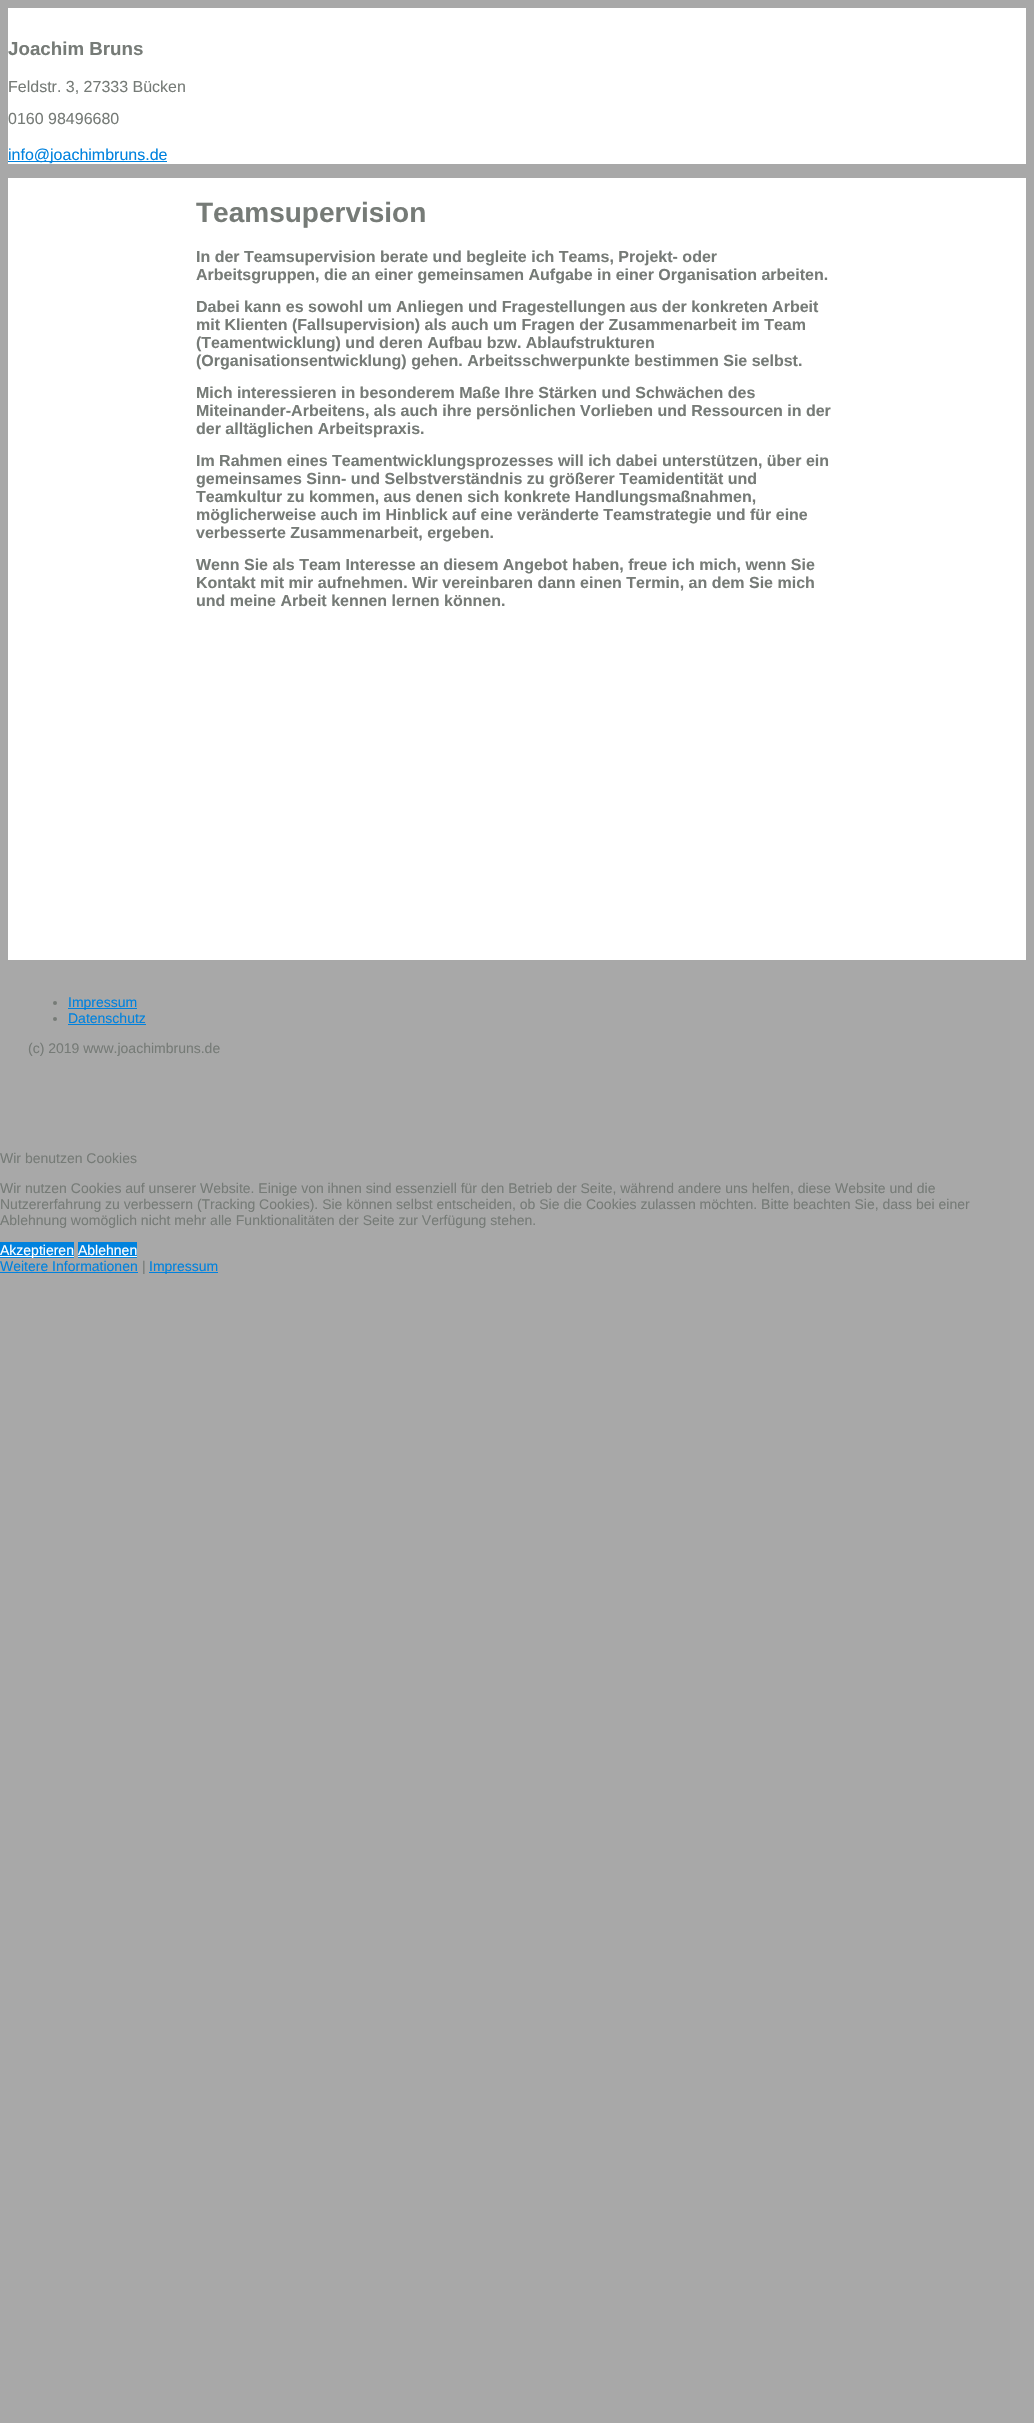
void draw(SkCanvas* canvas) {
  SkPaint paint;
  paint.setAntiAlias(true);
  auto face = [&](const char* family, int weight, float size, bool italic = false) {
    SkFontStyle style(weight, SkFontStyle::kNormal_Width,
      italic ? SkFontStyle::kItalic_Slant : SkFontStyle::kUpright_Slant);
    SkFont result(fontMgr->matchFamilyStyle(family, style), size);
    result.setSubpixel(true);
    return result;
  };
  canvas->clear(0xffa8a8a8);
  {
    const struct { float x, y, w, h; SkColor color; } items[] = {
      {8, 8, 1018, 156, 0xffffffff},
      {8, 161, 159, 1, 0xff0082de},
      {8, 178, 1018, 782, 0xffffffff},
    };
    for (auto [x, y, w, h, color] : items) {
      paint.setColor(color);
      canvas->drawRect(SkRect::MakeXYWH(x, y, w, h), paint);
    }
  }
  paint.setColor(0xff767b77);
  canvas->drawCircle(55, 1003, 2, paint);
  paint.setColor(0xff0082de);
  canvas->drawRect(SkRect::MakeXYWH(68, 1008, 69, 1), paint);
  paint.setColor(0xff767b77);
  canvas->drawCircle(55, 1019, 2, paint);
  {
    const struct { float x, y, w, h; SkColor color; } items[] = {
      {68, 1024, 78, 1, 0xff0082de},
      {0, 1242, 74, 16, 0xff0082de},
      {0, 1256, 74, 1, 0xffffffff},
      {78, 1242, 59, 16, 0xff0082de},
      {78, 1256, 59, 1, 0xffffffff},
      {0, 1272, 138, 1, 0xff0082de},
      {149, 1272, 69, 1, 0xff0082de},
    };
    for (auto [x, y, w, h, color] : items) {
      paint.setColor(color);
      canvas->drawRect(SkRect::MakeXYWH(x, y, w, h), paint);
    }
  }
  auto f0 = face("Liberation Sans", 700, 18.75f);
  paint.setColor(0xff767b77);
  canvas->drawString("Joachim Bruns", 8, 55, f0, paint);
  auto f1 = face("Liberation Sans", 400, 16);
  canvas->drawString("Feldstr. 3, 27333 Bücken", 8, 92, f1, paint);
  canvas->drawString("0160 98496680", 8, 124, f1, paint);
  paint.setColor(0xff0082de);
  canvas->drawString("info@joachimbruns.de", 8, 160, f1, paint);
  auto f2 = face("Liberation Sans", 700, 28);
  paint.setColor(0xff767b77);
  canvas->drawString("Teamsupervision", 196, 222, f2, paint);
  auto f3 = face("Liberation Sans", 700, 16);
  {
    const struct { const char* s; float x, y; } items[] = {
      {"In der Teamsupervision berate und begleite ich Teams, Projekt- oder", 196, 262},
      {"Arbeitsgruppen, die an einer gemeinsamen Aufgabe in einer Organisation arbeiten.", 196, 280},
      {"Dabei kann es sowohl um Anliegen und Fragestellungen aus der konkreten Arbeit", 196, 312},
      {"mit Klienten (Fallsupervision) als auch um Fragen der Zusammenarbeit im Team", 196, 330},
      {"(Teamentwicklung) und deren Aufbau bzw. Ablaufstrukturen", 196, 348},
      {"(Organisationsentwicklung) gehen. Arbeitsschwerpunkte bestimmen Sie selbst.", 196, 366},
      {"Mich interessieren in besonderem Maße Ihre Stärken und Schwächen des", 196, 398},
      {"Miteinander-Arbeitens, als auch ihre persönlichen Vorlieben und Ressourcen in der", 196, 416},
      {"der alltäglichen Arbeitspraxis.", 196, 434},
      {"Im Rahmen eines Teamentwicklungsprozesses will ich dabei unterstützen, über ein", 196, 466},
      {"gemeinsames Sinn- und Selbstverständnis zu größerer Teamidentität und", 196, 484},
      {"Teamkultur zu kommen, aus denen sich konkrete Handlungsmaßnahmen,", 196, 502},
      {"möglicherweise auch im Hinblick auf eine veränderte Teamstrategie und für eine", 196, 520},
      {"verbesserte Zusammenarbeit, ergeben.", 196, 538},
      {"Wenn Sie als Team Interesse an diesem Angebot haben, freue ich mich, wenn Sie", 196, 570},
      {"Kontakt mit mir aufnehmen. Wir vereinbaren dann einen Termin, an dem Sie mich", 196, 588},
      {"und meine Arbeit kennen lernen können.", 196, 606},
    };
    for (auto [s, x, y] : items) {
      canvas->drawString(s, x, y, f3, paint);
    }
  }
  auto f4 = face("Liberation Sans", 400, 14);
  paint.setColor(0xff0082de);
  canvas->drawString("Impressum", 68, 1007, f4, paint);
  canvas->drawString("Datenschutz", 68, 1023, f4, paint);
  paint.setColor(0xff767b77);
  {
    const struct { const char* s; float x, y; } items[] = {
      {"(c) 2019 www.joachimbruns.de", 28, 1053},
      {"Wir benutzen Cookies", 0, 1163},
      {"Wir nutzen Cookies auf unserer Website. Einige von ihnen sind essenziell für den Betrieb der Seite, während andere uns helfen, diese Website und die", 0, 1193},
      {"Nutzererfahrung zu verbessern (Tracking Cookies). Sie können selbst entscheiden, ob Sie die Cookies zulassen möchten. Bitte beachten Sie, dass bei einer", 0, 1209},
      {"Ablehnung womöglich nicht mehr alle Funktionalitäten der Seite zur Verfügung stehen.", 0, 1225},
    };
    for (auto [s, x, y] : items) {
      canvas->drawString(s, x, y, f4, paint);
    }
  }
  paint.setColor(0xffffffff);
  canvas->drawString("Akzeptieren", 0, 1255, f4, paint);
  canvas->drawString("Ablehnen", 78, 1255, f4, paint);
  paint.setColor(0xff0082de);
  canvas->drawString("Weitere Informationen", 0, 1271, f4, paint);
  paint.setColor(0xff767b77);
  canvas->drawString("|", 142, 1271, f4, paint);
  paint.setColor(0xff0082de);
  canvas->drawString("Impressum", 149, 1271, f4, paint);
}
